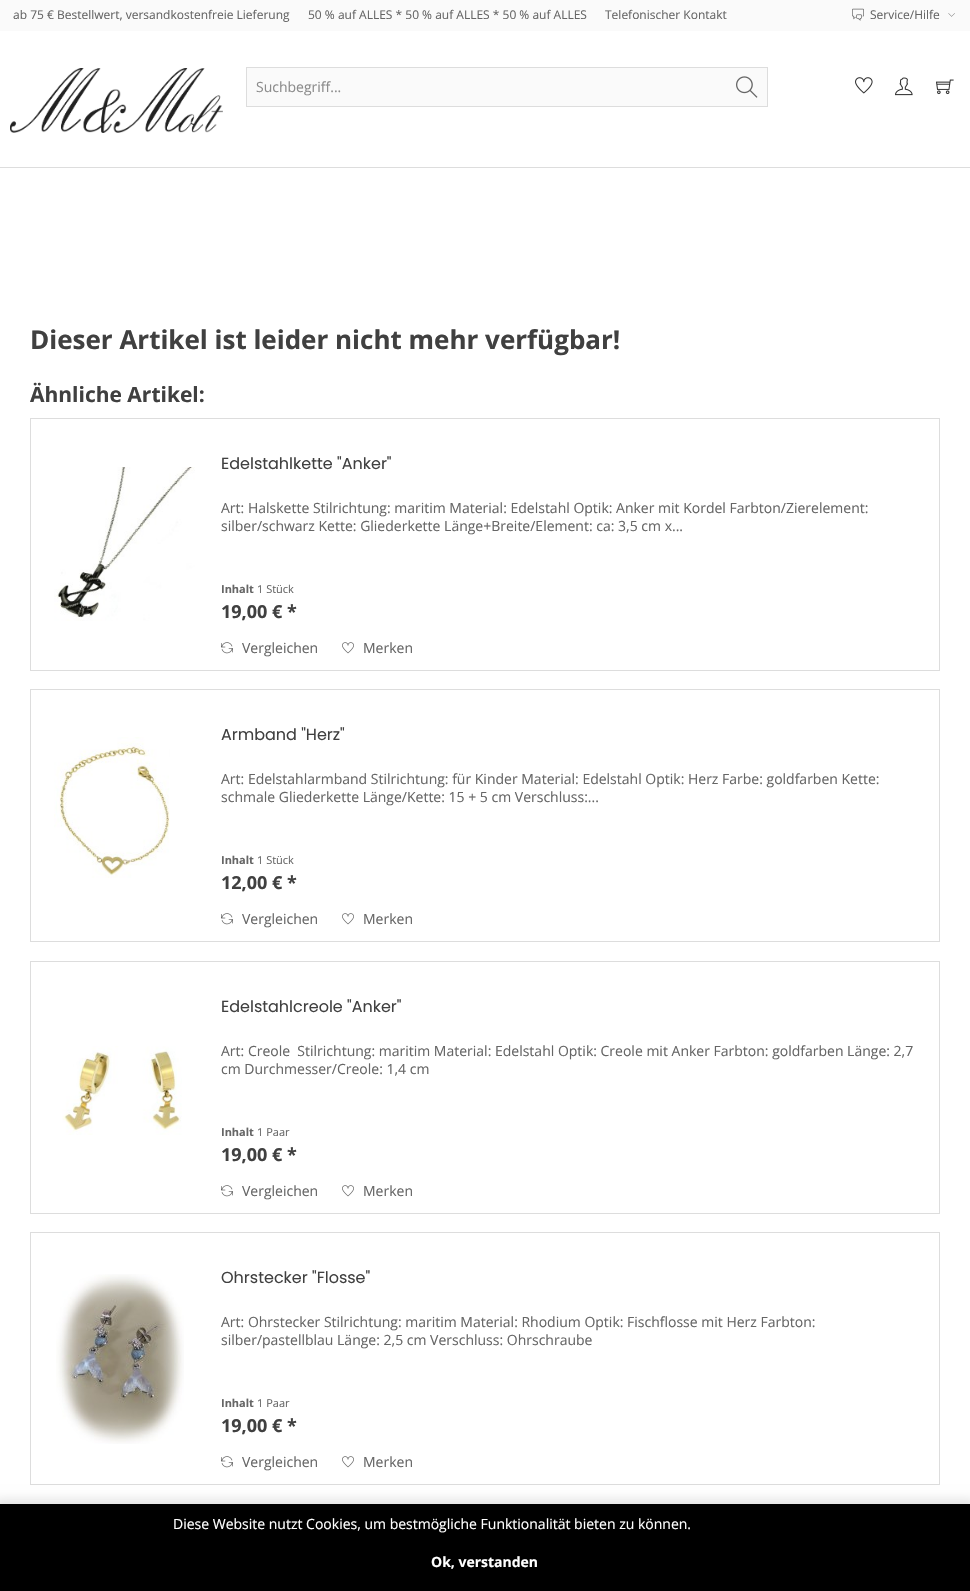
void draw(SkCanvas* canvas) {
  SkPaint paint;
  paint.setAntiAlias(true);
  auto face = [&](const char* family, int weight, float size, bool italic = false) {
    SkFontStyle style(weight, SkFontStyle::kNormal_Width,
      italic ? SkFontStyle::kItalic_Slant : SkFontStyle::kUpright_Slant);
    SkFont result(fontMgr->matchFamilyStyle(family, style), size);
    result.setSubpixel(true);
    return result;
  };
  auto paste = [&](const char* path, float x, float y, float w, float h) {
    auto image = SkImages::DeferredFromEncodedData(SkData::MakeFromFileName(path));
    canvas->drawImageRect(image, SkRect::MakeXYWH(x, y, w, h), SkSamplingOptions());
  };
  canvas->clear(0xffffffff);
  paint.setColor(0xfffafafa);
  canvas->drawRect(SkRect::MakeXYWH(0, 0, 970, 31), paint);
  paste("img/1.png", 852, 8, 12, 13);
  paste("img/2.png", 948, 13, 7, 4);
  paste("img/3.png", 10, 68, 213, 65);
  canvas->drawRect(SkRect::MakeXYWH(246.5f, 67.5f, 521, 39), paint);
  paint.setStroke(true);
  paint.setStrokeWidth(1);
  paint.setColor(0xffdddddd);
  canvas->drawRect(SkRect::MakeXYWH(246.5f, 67.5f, 521, 39), paint);
  paste("img/4.png", 736, 76, 22, 22);
  paste("img/5.png", 855, 77, 18, 17);
  paste("img/6.png", 895, 77, 18, 19);
  paste("img/7.png", 936, 79, 18, 16);
  paint.setStroke(false);
  canvas->drawRect(SkRect::MakeXYWH(0, 167, 970, 1), paint);
  paint.setStroke(true);
  canvas->drawRect(SkRect::MakeXYWH(30.5f, 418.5f, 909, 252), paint);
  paste("img/8.png", 54, 467, 141, 154);
  paste("img/9.png", 221, 642, 12, 12);
  paste("img/10.png", 342, 642, 12, 12);
  canvas->drawRect(SkRect::MakeXYWH(30.5f, 689.5f, 909, 252), paint);
  paste("img/11.png", 54, 737, 116, 141);
  paste("img/9.png", 221, 913, 12, 12);
  paste("img/10.png", 342, 913, 12, 12);
  canvas->drawRect(SkRect::MakeXYWH(30.5f, 961.5f, 909, 252), paint);
  paste("img/12.png", 62, 1046, 120, 89);
  paste("img/9.png", 221, 1185, 12, 12);
  paste("img/10.png", 342, 1185, 12, 12);
  canvas->drawRect(SkRect::MakeXYWH(30.5f, 1232.5f, 909, 252), paint);
  paste("img/13.png", 56, 1274, 128, 170);
  paste("img/9.png", 221, 1456, 12, 12);
  paste("img/10.png", 342, 1456, 12, 12);
  paint.setStroke(false);
  paint.setColor(0x1a000000);
  paint.setMaskFilter(SkMaskFilter::MakeBlur(kNormal_SkBlurStyle, 5));
  canvas->drawRect(SkRect::MakeXYWH(-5, 1499, 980, 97), paint);
  paint.setMaskFilter(nullptr);
  paint.setColor(0xff000000);
  canvas->drawRect(SkRect::MakeXYWH(0, 1504, 970, 87), paint);
  auto f0 = face("Open Sans", 400, 12);
  paint.setColor(0xff666666);
  {
    const struct { const char* s; float x, y; } items[] = {
      {"ab 75 € Bestellwert, versandkostenfreie Lieferung", 13, 19},
      {"50 % auf ALLES * 50 % auf ALLES * 50 % auf ALLES", 308, 19},
      {"Telefonischer Kontakt", 605, 19},
      {"Service/Hilfe", 870, 19},
    };
    for (auto [s, x, y] : items) {
      canvas->drawString(s, x, y, f0, paint);
    }
  }
  auto f1 = face("Open Sans", 400, 14);
  paint.setColor(0xff8c8c8c);
  canvas->drawString("Suchbegriff...", 256, 92, f1, paint);
  auto f2 = face("Open Sans", 700, 26);
  paint.setColor(0xff404040);
  canvas->drawString("Dieser Artikel ist leider nicht mehr verfügbar!", 30, 349, f2, paint);
  auto f3 = face("Open Sans", 700, 21);
  canvas->drawString("Ähnliche Artikel:", 30, 402, f3, paint);
  auto f4 = face("Poppins", 400, 16);
  canvas->drawString("Edelstahlkette \"Anker\"", 221, 469, f4, paint);
  paint.setColor(0xff666666);
  canvas->drawString("Art: Halskette Stilrichtung: maritim Material: Edelstahl Optik: Anker mit Kordel Farbton/Zierelement:", 221, 513, f1, paint);
  canvas->drawString("silber/schwarz Kette: Gliederkette Länge+Breite/Element: ca: 3,5 cm x...", 221, 531, f1, paint);
  auto f5 = face("Open Sans", 700, 11);
  canvas->drawString("Inhalt", 221, 593, f5, paint);
  auto f6 = face("Open Sans", 400, 11);
  canvas->drawString("1 Stück", 257, 593, f6, paint);
  auto f7 = face("Open Sans", 700, 18);
  paint.setColor(0xff404040);
  canvas->drawString("19,00 € *", 221, 618, f7, paint);
  paint.setColor(0xff666666);
  canvas->drawString("Vergleichen", 242, 653, f1, paint);
  canvas->drawString("Merken", 363, 653, f1, paint);
  paint.setColor(0xff404040);
  canvas->drawString("Armband \"Herz\"", 221, 740, f4, paint);
  paint.setColor(0xff666666);
  canvas->drawString("Art: Edelstahlarmband Stilrichtung: für Kinder Material: Edelstahl Optik: Herz Farbe: goldfarben Kette:", 221, 784, f1, paint);
  canvas->drawString("schmale Gliederkette Länge/Kette: 15 + 5 cm Verschluss:...", 221, 802, f1, paint);
  canvas->drawString("Inhalt", 221, 864, f5, paint);
  canvas->drawString("1 Stück", 257, 864, f6, paint);
  paint.setColor(0xff404040);
  canvas->drawString("12,00 € *", 221, 889, f7, paint);
  paint.setColor(0xff666666);
  canvas->drawString("Vergleichen", 242, 924, f1, paint);
  canvas->drawString("Merken", 363, 924, f1, paint);
  paint.setColor(0xff404040);
  canvas->drawString("Edelstahlcreole \"Anker\"", 221, 1012, f4, paint);
  paint.setColor(0xff666666);
  canvas->drawString("Art: Creole  Stilrichtung: maritim Material: Edelstahl Optik: Creole mit Anker Farbton: goldfarben Länge: 2,7", 221, 1056, f1, paint);
  canvas->drawString("cm Durchmesser/Creole: 1,4 cm", 221, 1074, f1, paint);
  canvas->drawString("Inhalt", 221, 1136, f5, paint);
  canvas->drawString("1 Paar", 257, 1136, f6, paint);
  paint.setColor(0xff404040);
  canvas->drawString("19,00 € *", 221, 1161, f7, paint);
  paint.setColor(0xff666666);
  canvas->drawString("Vergleichen", 242, 1196, f1, paint);
  canvas->drawString("Merken", 363, 1196, f1, paint);
  paint.setColor(0xff404040);
  canvas->drawString("Ohrstecker \"Flosse\"", 221, 1283, f4, paint);
  paint.setColor(0xff666666);
  canvas->drawString("Art: Ohrstecker Stilrichtung: maritim Material: Rhodium Optik: Fischflosse mit Herz Farbton:", 221, 1327, f1, paint);
  canvas->drawString("silber/pastellblau Länge: 2,5 cm Verschluss: Ohrschraube", 221, 1345, f1, paint);
  canvas->drawString("Inhalt", 221, 1407, f5, paint);
  canvas->drawString("1 Paar", 257, 1407, f6, paint);
  paint.setColor(0xff404040);
  canvas->drawString("19,00 € *", 221, 1432, f7, paint);
  paint.setColor(0xff666666);
  canvas->drawString("Vergleichen", 242, 1467, f1, paint);
  canvas->drawString("Merken", 363, 1467, f1, paint);
  paint.setColor(0xffffffff);
  canvas->drawString("Diese Website nutzt Cookies, um bestmögliche Funktionalität bieten zu können.", 173, 1529, f1, paint);
  auto f8 = face("Open Sans", 700, 14);
  canvas->drawString("Ok, verstanden", 431, 1567, f8, paint);
}
